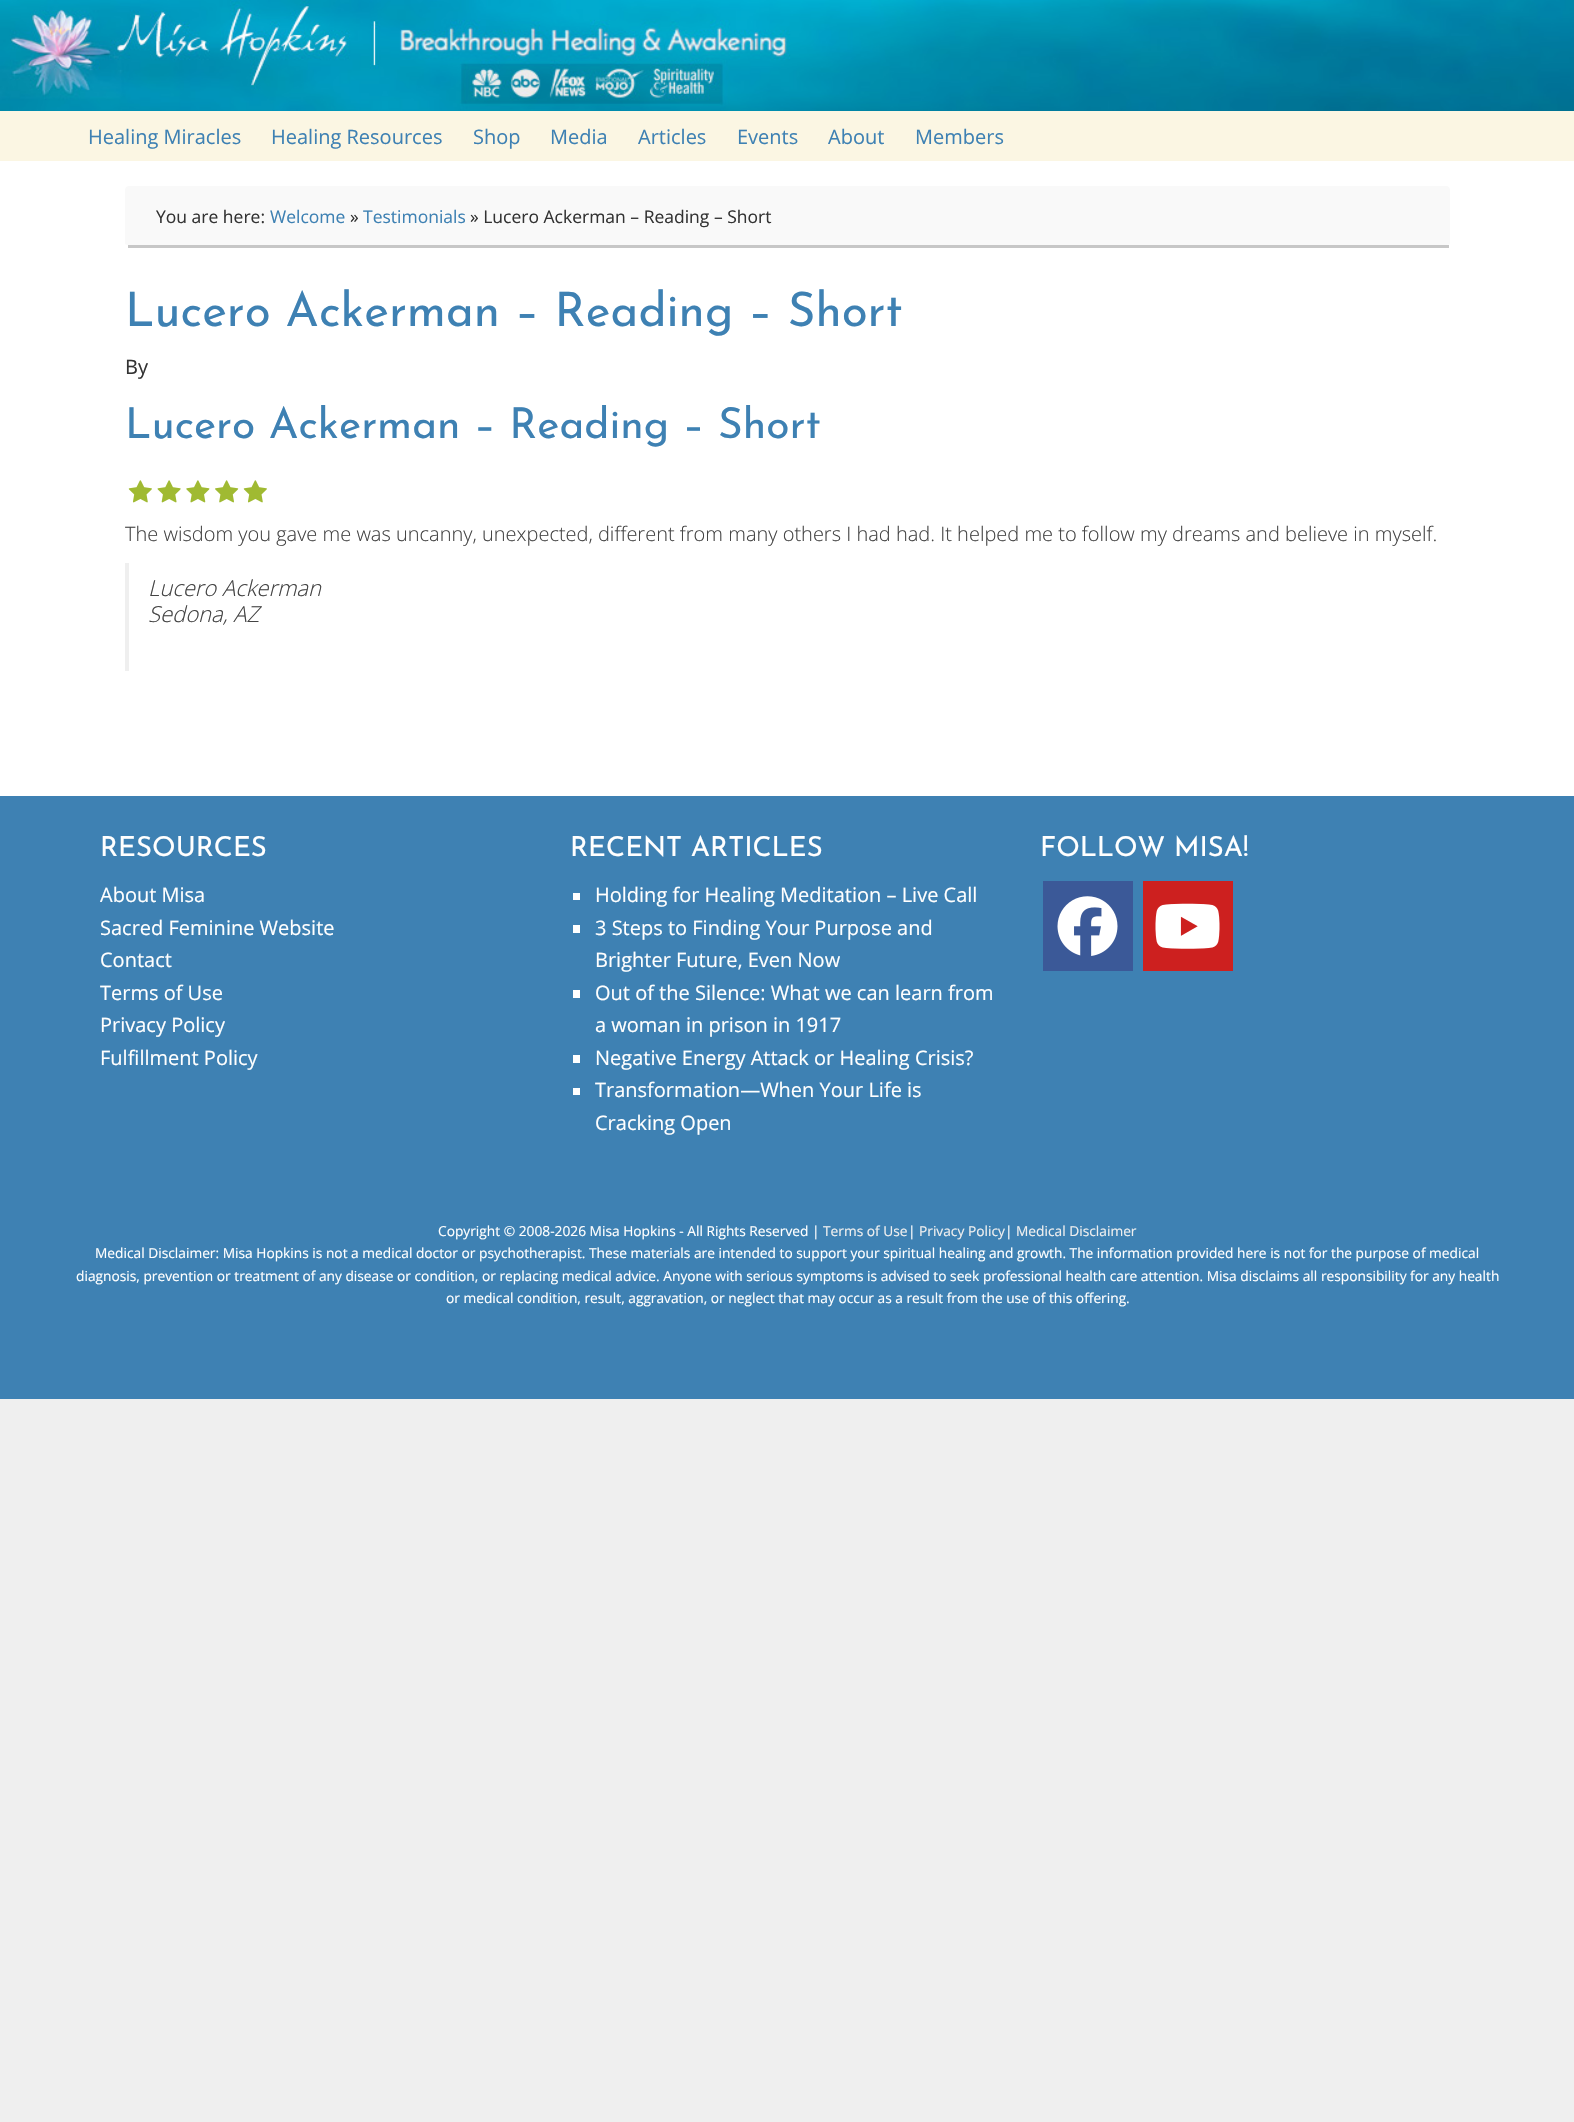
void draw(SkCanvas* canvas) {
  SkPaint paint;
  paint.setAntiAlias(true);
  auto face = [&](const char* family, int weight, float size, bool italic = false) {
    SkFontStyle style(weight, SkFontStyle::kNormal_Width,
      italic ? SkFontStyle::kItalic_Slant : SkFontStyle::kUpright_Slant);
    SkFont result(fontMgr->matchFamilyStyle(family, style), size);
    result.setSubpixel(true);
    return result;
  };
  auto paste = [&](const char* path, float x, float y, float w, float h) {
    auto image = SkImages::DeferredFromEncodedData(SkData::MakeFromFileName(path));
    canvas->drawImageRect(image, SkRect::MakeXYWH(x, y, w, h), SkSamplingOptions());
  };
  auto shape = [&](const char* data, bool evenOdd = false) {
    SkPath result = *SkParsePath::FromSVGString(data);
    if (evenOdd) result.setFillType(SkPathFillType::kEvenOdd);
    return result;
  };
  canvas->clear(0xffefefef);
  paint.setColor(0xffffffff);
  canvas->drawRect(SkRect::MakeXYWH(0, 161, 1574, 635), paint);
  paste("img/1.png", 0, 0, 1574, 111);
  paint.setColor(0xfffbf6e3);
  canvas->drawRect(SkRect::MakeXYWH(0, 111, 1574, 50), paint);
  paint.setColor(0xfff9f9f9);
  canvas->drawPath(shape("M129 186H1446C1448 186 1450 188 1450 190V244C1450 244 1448 245 1446 245H129C127 245 125 244 125 244V190C125 188 127 186 129 186Z"), paint);
  paint.setColor(0xffc7c7c7);
  canvas->drawRect(SkRect::MakeXYWH(128, 245, 1321, 3), paint);
  paste("img/2.png", 128, 480, 24, 23);
  paste("img/3.png", 157, 480, 24, 23);
  paste("img/4.png", 186, 480, 24, 23);
  paste("img/5.png", 215, 480, 24, 23);
  paste("img/2.png", 243, 480, 24, 23);
  {
    const struct { float x, y, w, h; SkColor color; } items[] = {
      {125, 563, 4, 108, 0xffefefef},
      {0, 796, 1574, 603, 0xff3e81b3},
      {573, 893, 7, 7, 0xffffffff},
      {573, 925, 7, 8, 0xffffffff},
      {573, 990, 7, 8, 0xffffffff},
      {573, 1055, 7, 8, 0xffffffff},
      {573, 1088, 7, 7, 0xffffffff},
      {1043, 881, 90, 90, 0xff3b5998},
    };
    for (auto [x, y, w, h, color] : items) {
      paint.setColor(color);
      canvas->drawRect(SkRect::MakeXYWH(x, y, w, h), paint);
    }
  }
  paste("img/6.png", 1057, 896, 61, 60);
  paint.setColor(0xffcd201f);
  canvas->drawRect(SkRect::MakeXYWH(1143, 881, 90, 90), paint);
  paste("img/7.png", 1155, 903, 65, 46);
  auto f0 = face("Open Sans", 400, 20);
  paint.setColor(0xff3e81b3);
  {
    const struct { const char* s; float x, y; } items[] = {
      {"Healing Miracles", 88, 144},
      {"Healing Resources", 271, 144},
      {"Shop", 473, 144},
      {"Media", 550, 144},
      {"Articles", 638, 144},
      {"Events", 737, 144},
      {"About", 828, 144},
      {"Members", 915, 144},
    };
    for (auto [s, x, y] : items) {
      canvas->drawString(s, x, y, f0, paint);
    }
  }
  auto f1 = face("Open Sans", 400, 17.5f);
  paint.setColor(0xff333333);
  canvas->drawString("You are here:", 156, 223, f1, paint);
  paint.setColor(0xff3e81b3);
  canvas->drawString("Welcome", 270, 223, f1, paint);
  paint.setColor(0xff333333);
  canvas->drawString("»", 350, 223, f1, paint);
  paint.setColor(0xff3e81b3);
  canvas->drawString("Testimonials", 363, 223, f1, paint);
  paint.setColor(0xff333333);
  canvas->drawString("» Lucero Ackerman – Reading – Short", 470, 223, f1, paint);
  auto f2 = face("Josefin Sans", 400, 47.5f);
  paint.setColor(0xff3e81b3);
  canvas->drawString("Lucero Ackerman – Reading – Short", 125, 326, f2, paint);
  paint.setColor(0xff333333);
  canvas->drawString("By", 125, 374, f0, paint);
  auto f3 = face("Josefin Sans", 400, 42.5f);
  paint.setColor(0xff3e81b3);
  canvas->drawString("Lucero Ackerman – Reading – Short", 125, 438, f3, paint);
  auto f4 = face("Open Sans", 300, 20);
  paint.setColor(0xff444444);
  canvas->drawString("The wisdom you gave me was uncanny, unexpected, different from many others I had had. It helped me to follow my dreams and believe in myself.", 125, 541, f4, paint);
  auto f5 = face("Open Sans", 300, 22, true);
  canvas->drawString("Lucero Ackerman", 148, 596, f5, paint);
  canvas->drawString("Sedona, AZ", 148, 622, f5, paint);
  auto f6 = face("Josefin Sans", 400, 27.5f);
  paint.setColor(0xffffffff);
  canvas->drawString("RESOURCES", 100, 856, f6, paint);
  {
    const struct { const char* s; float x, y; } items[] = {
      {"About Misa", 100, 902},
      {"Sacred Feminine Website", 100, 935},
      {"Contact", 100, 967},
      {"Terms of Use", 100, 1000},
      {"Privacy Policy", 100, 1032},
      {"Fulfillment Policy", 100, 1065},
    };
    for (auto [s, x, y] : items) {
      canvas->drawString(s, x, y, f0, paint);
    }
  }
  canvas->drawString("RECENT ARTICLES", 570, 856, f6, paint);
  {
    const struct { const char* s; float x, y; } items[] = {
      {"Holding for Healing Meditation – Live Call", 595, 902},
      {"3 Steps to Finding Your Purpose and", 595, 935},
      {"Brighter Future, Even Now", 595, 967},
      {"Out of the Silence: What we can learn from", 595, 1000},
      {"a woman in prison in 1917", 595, 1032},
      {"Negative Energy Attack or Healing Crisis?", 595, 1065},
      {"Transformation—When Your Life is", 595, 1097},
      {"Cracking Open", 595, 1130},
    };
    for (auto [s, x, y] : items) {
      canvas->drawString(s, x, y, f0, paint);
    }
  }
  canvas->drawString("FOLLOW MISA!", 1040, 856, f6, paint);
  auto f7 = face("Open Sans", 400, 13.75f);
  canvas->drawString("Copyright © 2008-2026 Misa Hopkins - All Rights Reserved |", 438, 1236, f7, paint);
  paint.setColor(0xffefefef);
  canvas->drawString("Terms of Use", 823, 1236, f7, paint);
  paint.setColor(0xffffffff);
  canvas->drawString("|", 908, 1236, f7, paint);
  paint.setColor(0xffefefef);
  canvas->drawString("Privacy Policy", 919, 1236, f7, paint);
  paint.setColor(0xffffffff);
  canvas->drawString("|", 1005, 1236, f7, paint);
  paint.setColor(0xffefefef);
  canvas->drawString("Medical Disclaimer", 1016, 1236, f7, paint);
  paint.setColor(0xffffffff);
  {
    const struct { const char* s; float x, y; } items[] = {
      {"Medical Disclaimer: Misa Hopkins is not a medical doctor or psychotherapist. These materials are intended to support your spiritual healing and growth. The information provided here is not for the purpose of medical", 95, 1258},
      {"diagnosis, prevention or treatment of any disease or condition, or replacing medical advice. Anyone with serious symptoms is advised to seek professional health care attention. Misa disclaims all responsibility for any health", 76, 1281},
      {"or medical condition, result, aggravation, or neglect that may occur as a result from the use of this offering.", 446, 1303},
    };
    for (auto [s, x, y] : items) {
      canvas->drawString(s, x, y, f7, paint);
    }
  }
}
